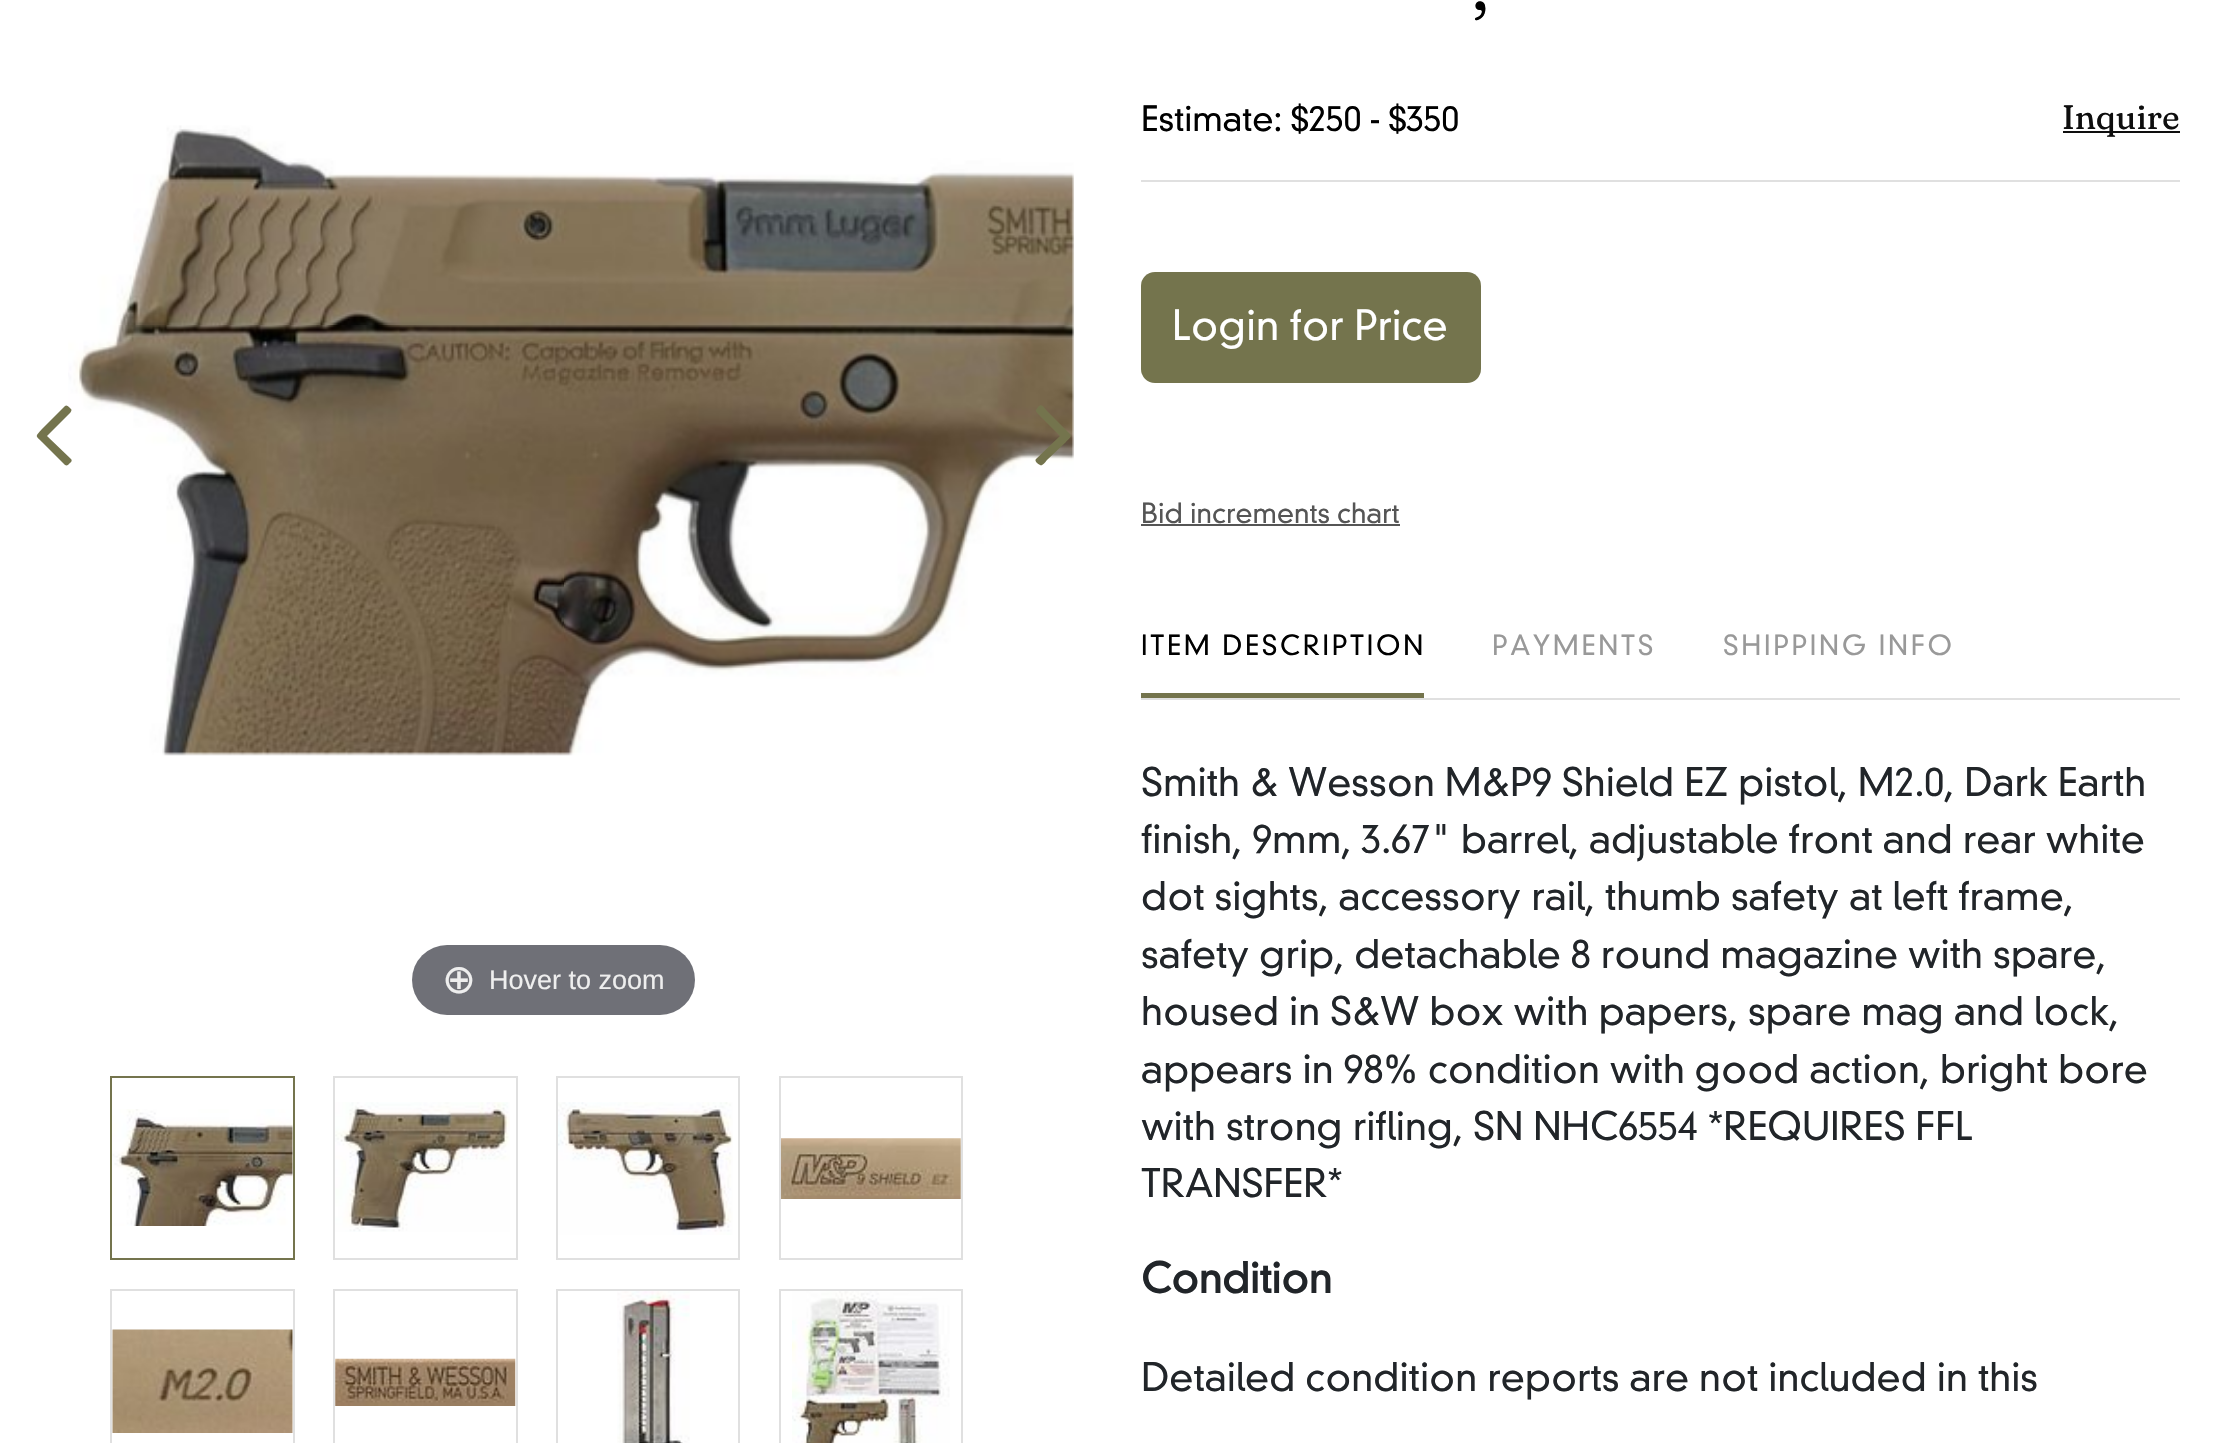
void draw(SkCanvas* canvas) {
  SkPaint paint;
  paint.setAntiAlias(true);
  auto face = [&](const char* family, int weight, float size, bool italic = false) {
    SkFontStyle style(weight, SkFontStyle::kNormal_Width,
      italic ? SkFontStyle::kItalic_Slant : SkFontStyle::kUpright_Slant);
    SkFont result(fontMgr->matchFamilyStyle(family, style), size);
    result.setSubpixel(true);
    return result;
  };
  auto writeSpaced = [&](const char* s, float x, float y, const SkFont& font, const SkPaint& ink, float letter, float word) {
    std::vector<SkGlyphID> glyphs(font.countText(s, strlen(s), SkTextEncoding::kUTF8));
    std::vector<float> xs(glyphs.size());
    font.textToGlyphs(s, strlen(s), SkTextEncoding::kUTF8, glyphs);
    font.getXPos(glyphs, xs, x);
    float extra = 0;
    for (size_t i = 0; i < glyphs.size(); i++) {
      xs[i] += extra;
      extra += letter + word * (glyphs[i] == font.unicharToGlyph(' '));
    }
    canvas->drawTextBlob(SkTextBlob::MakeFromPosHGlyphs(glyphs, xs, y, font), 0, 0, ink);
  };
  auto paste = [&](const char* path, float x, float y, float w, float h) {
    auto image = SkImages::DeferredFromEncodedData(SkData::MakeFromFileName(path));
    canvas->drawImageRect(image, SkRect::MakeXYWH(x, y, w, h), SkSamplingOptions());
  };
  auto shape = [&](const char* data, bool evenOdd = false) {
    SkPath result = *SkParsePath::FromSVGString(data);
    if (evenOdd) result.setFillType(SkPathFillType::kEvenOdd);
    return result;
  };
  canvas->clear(0xffffffff);
  paste("img/1.png", 68, 125, 1006, 631);
  paint.setColor(0xff74744d);
  canvas->drawPath(shape("M71 409C73 411 68 415 67 416L47 436L71 459C73 461 70 463 69 464C68 465 67 466 65 465L42 442C35 435 35 437 42 429L65 406C67 404 70 408 71 409Z"), paint);
  canvas->drawPath(shape("M1070 434C1073 437 1066 441 1066 442L1047 460C1047 460 1042 467 1040 465C1038 464 1034 461 1036 459L1060 436L1040 416C1040 415 1035 412 1036 410L1038 407C1042 403 1043 407 1047 411Z"), paint);
  paint.setColor(0xff6f7077);
  canvas->drawRoundRect(SkRect::MakeXYWH(412, 945, 283, 70), 35, 35, paint);
  paste("img/2.png", 112, 1109, 181, 117);
  paint.setStroke(true);
  paint.setStrokeWidth(2);
  paint.setColor(0xff74744d);
  canvas->drawRect(SkRect::MakeXYWH(111, 1077, 183, 182), paint);
  paste("img/3.png", 335, 1102, 175, 130);
  paint.setColor(0xffe0e0e0);
  canvas->drawRect(SkRect::MakeXYWH(334, 1077, 183, 182), paint);
  paste("img/4.png", 558, 1102, 175, 133);
  canvas->drawRect(SkRect::MakeXYWH(557, 1077, 182, 182), paint);
  paste("img/5.png", 781, 1138, 180, 61);
  canvas->drawRect(SkRect::MakeXYWH(780, 1077, 182, 182), paint);
  paste("img/6.png", 112, 1329, 181, 104);
  canvas->drawRect(SkRect::MakeXYWH(111, 1290, 183, 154), paint);
  paste("img/7.png", 335, 1358, 181, 48);
  canvas->drawRect(SkRect::MakeXYWH(334, 1290, 183, 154), paint);
  paste("img/8.png", 617, 1291, 73, 152);
  canvas->drawRect(SkRect::MakeXYWH(557, 1290, 182, 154), paint);
  paste("img/9.png", 792, 1291, 158, 152);
  canvas->drawRect(SkRect::MakeXYWH(780, 1290, 182, 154), paint);
  paint.setStroke(false);
  canvas->drawRect(SkRect::MakeXYWH(1141, 180, 1039, 2), paint);
  paint.setColor(0xff0e0e0e);
  canvas->drawRect(SkRect::MakeXYWH(2063, 131, 117, 2), paint);
  paint.setColor(0xff74744d);
  canvas->drawRoundRect(SkRect::MakeXYWH(1141, 272, 340, 111), 14, 14, paint);
  {
    const struct { float x, y, w, h; SkColor color; } items[] = {
      {1141, 524, 259, 2, 0xff555555},
      {1141, 698, 1039, 2, 0xffe0e0e0},
      {1141, 693, 283, 5, 0xff74744d},
    };
    for (auto [x, y, w, h, color] : items) {
      paint.setColor(color);
      canvas->drawRect(SkRect::MakeXYWH(x, y, w, h), paint);
    }
  }
  auto f0 = face("DejaVu Sans", 400, 40.5f);
  paint.setColor(0xffeeeeee);
  canvas->drawString("⊕", 442, 993, f0, paint);
  auto f1 = face("Liberation Sans", 400, 27);
  canvas->drawString("Hover to zoom", 489, 989, f1, paint);
  auto f2 = face("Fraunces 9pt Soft", 400, 63);
  paint.setColor(0xff000000);
  canvas->drawString(",", 1472, 10, f2, paint);
  auto f3 = face("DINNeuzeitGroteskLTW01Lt", 300, 33.75f);
  canvas->drawString("Estimate: $250 - $350", 1141, 131, f3, paint);
  auto f4 = face("Fraunces 9pt Soft", 400, 33.75f);
  paint.setColor(0xff0e0e0e);
  canvas->drawString("Inquire", 2062, 129, f4, paint);
  auto f5 = face("DINNeuzeitGroteskLTW01Lt", 300, 40.5f);
  paint.setColor(0xffffffff);
  canvas->drawString("Login for Price", 1172, 340, f5, paint);
  auto f6 = face("DINNeuzeitGroteskLTW01Lt", 300, 27);
  paint.setColor(0xff555555);
  canvas->drawString("Bid increments chart", 1141, 523, f6, paint);
  paint.setColor(0xff000000);
  writeSpaced("ITEM DESCRIPTION", 1141, 655, f6, paint, 2.75f, 0);
  paint.setColor(0xff999999);
  writeSpaced("PAYMENTS", 1492, 655, f6, paint, 2.75f, 0);
  writeSpaced("SHIPPING INFO", 1723, 655, f6, paint, 2.75f, 0);
  auto f7 = face("DINNeuzeitGroteskLTW01Lt", 300, 38.25f);
  paint.setColor(0xff212529);
  {
    const struct { const char* s; float x, y; } items[] = {
      {"Smith & Wesson M&P9 Shield EZ pistol, M2.0, Dark Earth", 1141, 796},
      {"finish, 9mm, 3.67\" barrel, adjustable front and rear white", 1141, 853},
      {"dot sights, accessory rail, thumb safety at left frame,", 1141, 910},
      {"safety grip, detachable 8 round magazine with spare,", 1141, 968},
      {"housed in S&W box with papers, spare mag and lock,", 1141, 1025},
      {"appears in 98% condition with good action, bright bore", 1141, 1083},
      {"with strong rifling, SN NHC6554 *REQUIRES FFL", 1141, 1140},
      {"TRANSFER*", 1141, 1197},
    };
    for (auto [s, x, y] : items) {
      canvas->drawString(s, x, y, f7, paint);
    }
  }
  auto f8 = face("DINNeuzeitGroteskLTW01Lt", 700, 40.5f);
  canvas->drawString("Condition", 1141, 1293, f8, paint);
  canvas->drawString("Detailed condition reports are not included in this", 1141, 1391, f7, paint);
}
